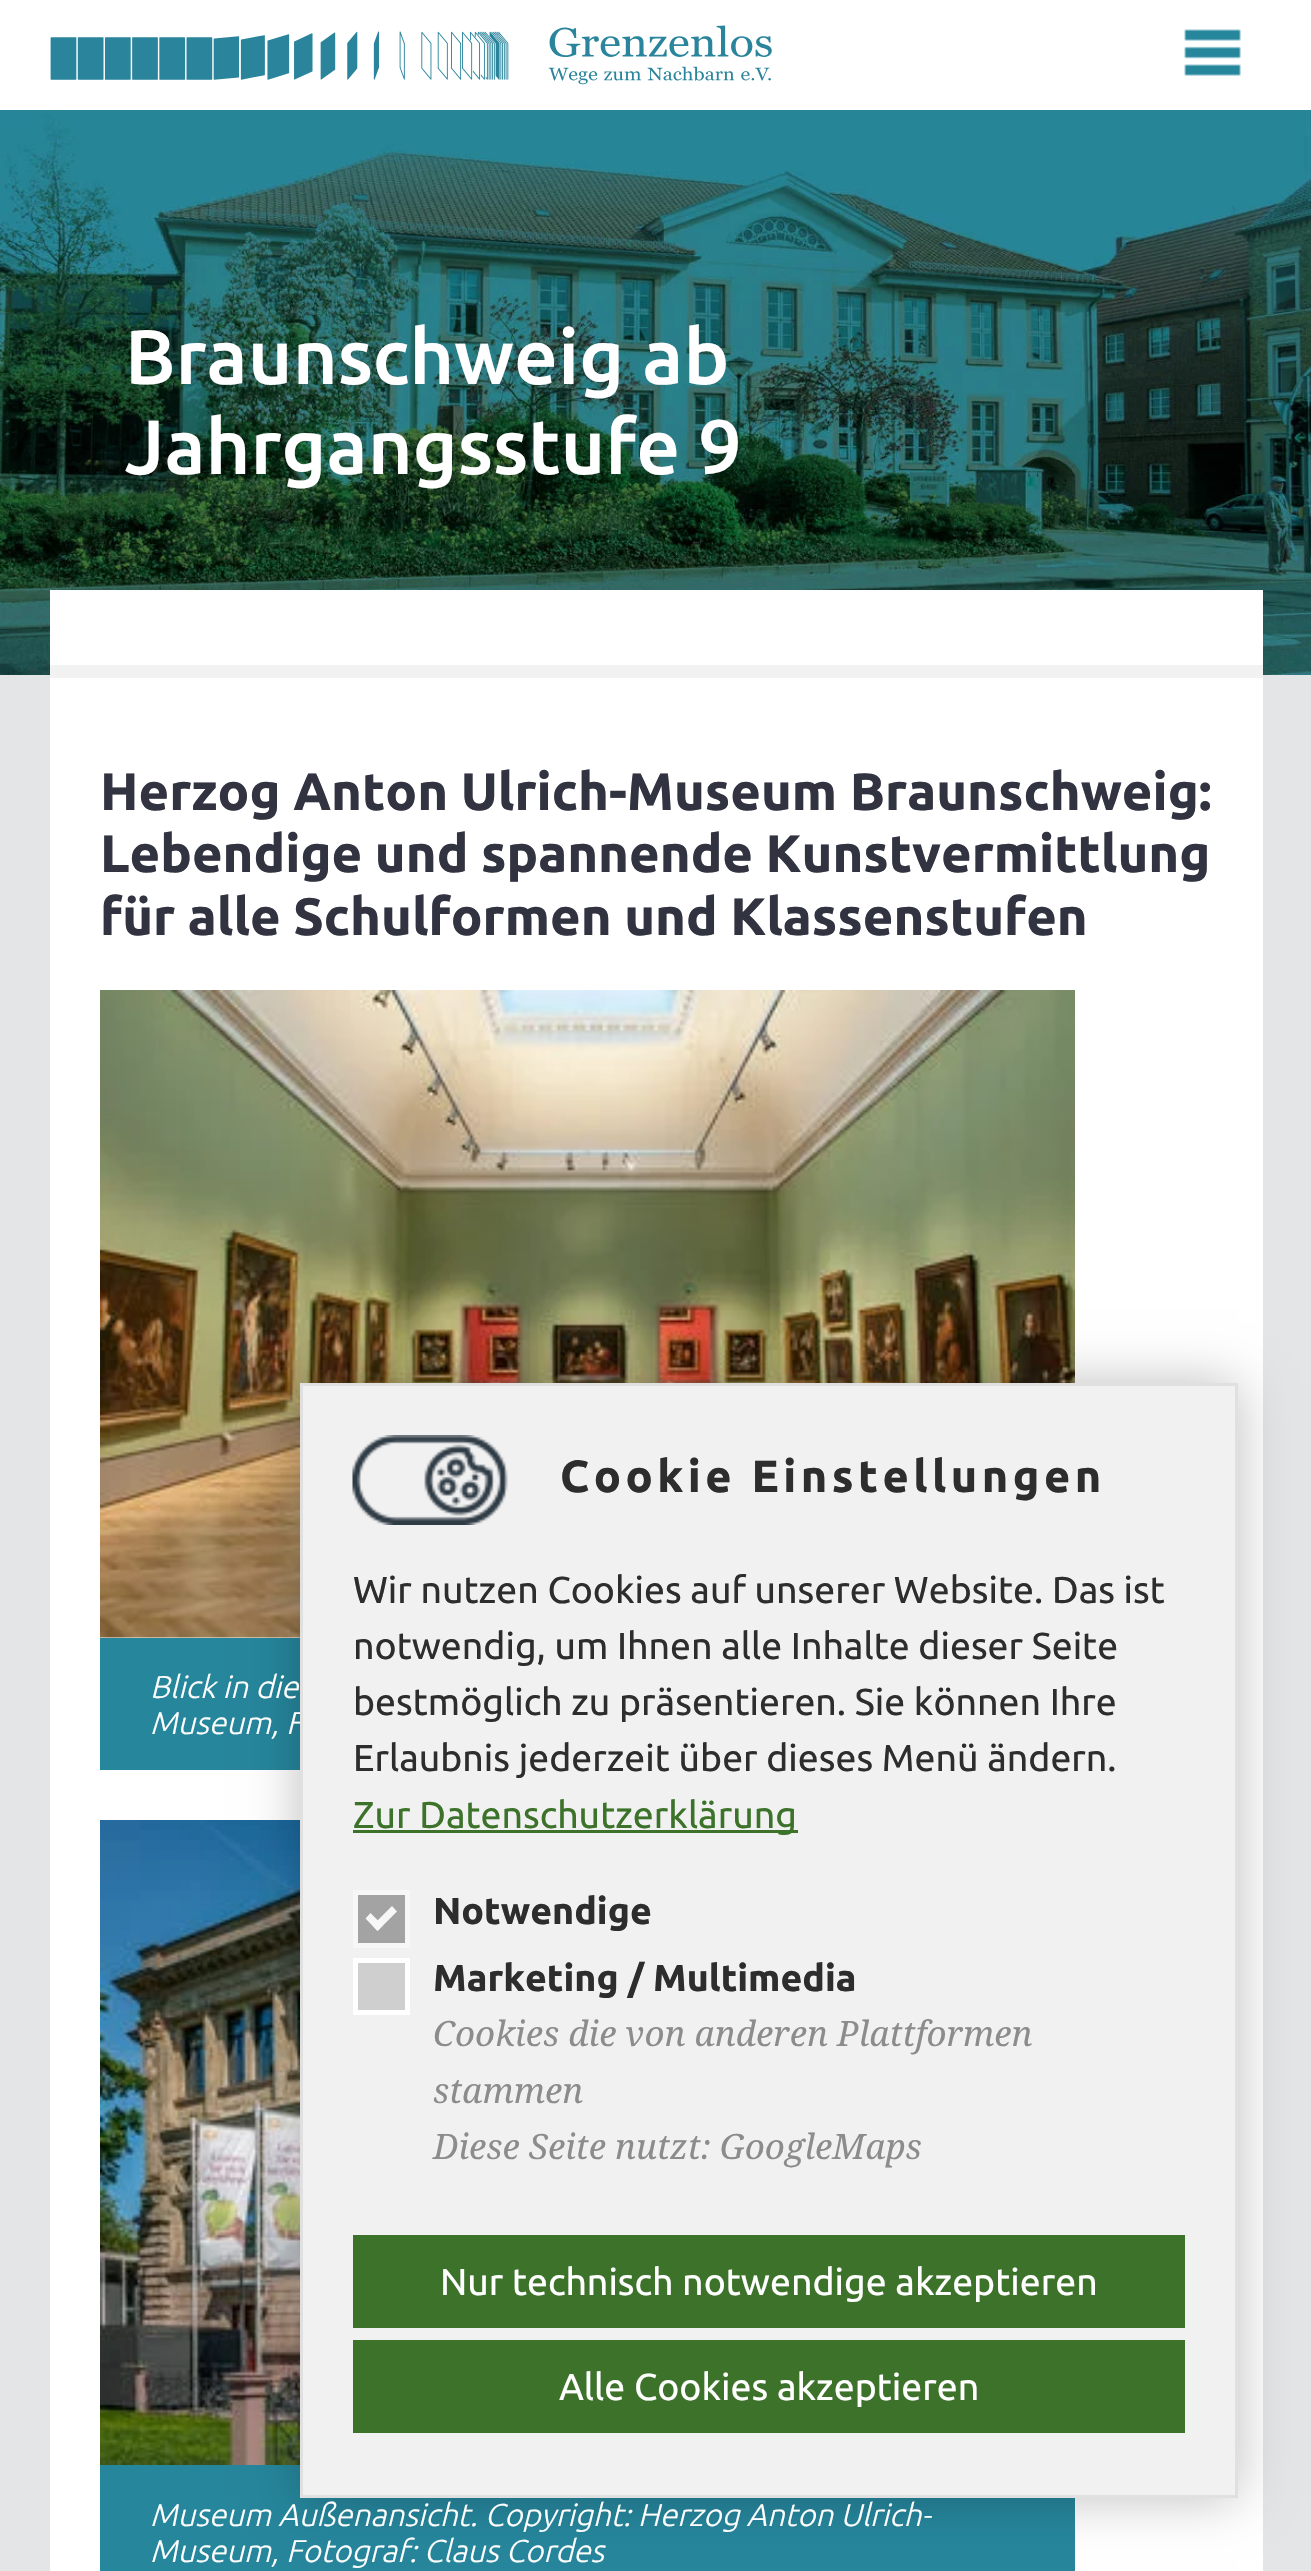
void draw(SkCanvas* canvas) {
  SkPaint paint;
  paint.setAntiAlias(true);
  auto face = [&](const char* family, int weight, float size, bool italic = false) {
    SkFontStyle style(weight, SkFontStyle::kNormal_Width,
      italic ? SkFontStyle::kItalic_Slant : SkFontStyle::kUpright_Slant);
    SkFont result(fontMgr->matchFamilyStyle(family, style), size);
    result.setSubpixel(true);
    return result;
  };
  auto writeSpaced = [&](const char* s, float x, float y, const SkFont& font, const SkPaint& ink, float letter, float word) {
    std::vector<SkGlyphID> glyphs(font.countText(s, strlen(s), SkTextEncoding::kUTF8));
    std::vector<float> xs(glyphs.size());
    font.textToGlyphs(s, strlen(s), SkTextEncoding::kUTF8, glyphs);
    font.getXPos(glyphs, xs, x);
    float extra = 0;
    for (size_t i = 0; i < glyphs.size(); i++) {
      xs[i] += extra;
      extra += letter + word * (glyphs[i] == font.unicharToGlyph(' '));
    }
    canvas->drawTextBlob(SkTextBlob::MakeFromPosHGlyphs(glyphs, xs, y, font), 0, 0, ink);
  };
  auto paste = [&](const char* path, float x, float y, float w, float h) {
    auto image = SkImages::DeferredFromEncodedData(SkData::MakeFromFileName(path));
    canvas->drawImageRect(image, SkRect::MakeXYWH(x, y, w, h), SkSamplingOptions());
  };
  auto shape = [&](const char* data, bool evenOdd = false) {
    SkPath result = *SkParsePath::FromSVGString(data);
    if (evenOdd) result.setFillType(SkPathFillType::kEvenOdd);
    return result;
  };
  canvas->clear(0xffe4e5e7);
  paint.setColor(0xffffffff);
  canvas->drawRect(SkRect::MakeXYWH(0, 0, 1311, 110), paint);
  paste("img/1.png", 50, 25, 722, 60);
  paste("img/2.png", 1184, 29, 57, 47);
  paste("img/3.png", 0, 110, 1311, 565);
  {
    const struct { float x, y, w, h; SkColor color; } items[] = {
      {50, 590, 1213, 75, 0xffffffff},
      {50, 665, 1213, 13, 0xfff2f2f2},
      {50, 678, 1213, 1893, 0xffffffff},
    };
    for (auto [x, y, w, h, color] : items) {
      paint.setColor(color);
      canvas->drawRect(SkRect::MakeXYWH(x, y, w, h), paint);
    }
  }
  paste("img/4.png", 100, 990, 975, 648);
  paint.setColor(0xff26869c);
  canvas->drawRect(SkRect::MakeXYWH(100, 1638, 200, 132), paint);
  paste("img/5.png", 100, 1820, 200, 645);
  canvas->drawRect(SkRect::MakeXYWH(100, 2465, 975, 106), paint);
  paint.setColor(0x40000000);
  paint.setMaskFilter(SkMaskFilter::MakeBlur(kNormal_SkBlurStyle, 25));
  canvas->drawRect(SkRect::MakeXYWH(300, 1383, 938, 1115), paint);
  paint.setMaskFilter(nullptr);
  auto f0 = face("Ubuntu", 500, 77);
  paint.setColor(0xffffffff);
  canvas->drawString("Braunschweig ab", 125, 384, f0, paint);
  canvas->drawString("Jahrgangsstufe 9", 125, 474, f0, paint);
  auto f1 = face("Ubuntu", 700, 52.5f);
  paint.setColor(0xff313341);
  {
    const struct { const char* s; float x, y; } items[] = {
      {"Herzog Anton Ulrich-Museum Braunschweig:", 100, 810},
      {"Lebendige und spannende Kunstvermittlung", 100, 872},
      {"für alle Schulformen und Klassenstufen", 100, 935},
    };
    for (auto [s, x, y] : items) {
      canvas->drawString(s, x, y, f1, paint);
    }
  }
  auto f2 = face("Ubuntu", 300, 31.5f, true);
  paint.setColor(0xffffffff);
  {
    const struct { const char* s; float x, y; } items[] = {
      {"Blick in die", 150, 1698},
      {"Museum, F", 150, 1734},
      {"Museum Außenansicht. Copyright: Herzog Anton Ulrich-", 150, 2526},
      {"Museum, Fotograf: Claus Cordes", 150, 2562},
    };
    for (auto [s, x, y] : items) {
      canvas->drawString(s, x, y, f2, paint);
    }
  }
  paint.setColor(0xfff1f1f1);
  canvas->drawRect(SkRect::MakeXYWH(301.5f, 1384.5f, 935, 1112), paint);
  paint.setStroke(true);
  paint.setStrokeWidth(3);
  paint.setColor(0xffe0e0e0);
  canvas->drawRect(SkRect::MakeXYWH(301.5f, 1384.5f, 935, 1112), paint);
  paste("img/6.png", 352, 1435, 156, 90);
  auto f3 = face("Ubuntu", 700, 45);
  paint.setStroke(false);
  paint.setColor(0xff2d2d2d);
  writeSpaced("Cookie Einstellungen", 560, 1492, f3, paint, 4.5f, 0);
  auto f4 = face("Ubuntu", 400, 37.5f);
  {
    const struct { const char* s; float x, y; } items[] = {
      {"Wir nutzen Cookies auf unserer Website. Das ist", 353, 1603},
      {"notwendig, um Ihnen alle Inhalte dieser Seite", 353, 1659},
      {"bestmöglich zu präsentieren. Sie können Ihre", 353, 1715},
      {"Erlaubnis jederzeit über dieses Menü ändern.", 353, 1771},
    };
    for (auto [s, x, y] : items) {
      canvas->drawString(s, x, y, f4, paint);
    }
  }
  paint.setColor(0xff3c722a);
  canvas->drawRect(SkRect::MakeXYWH(353, 1830, 445, 3), paint);
  canvas->drawString("Zur Datenschutzerklärung", 353, 1828, f4, paint);
  paint.setColor(0xffa3a3a3);
  canvas->drawRect(SkRect::MakeXYWH(355.5f, 1892.5f, 52, 53), paint);
  paint.setStroke(true);
  paint.setStrokeWidth(5);
  paint.setColor(0xfff7f7f7);
  canvas->drawRect(SkRect::MakeXYWH(355.5f, 1892.5f, 52, 53), paint);
  paint.setStroke(false);
  canvas->drawPath(shape("M392 1906L397 1911.5L377.5 1931L372.5 1925.5Z"), paint);
  canvas->drawPath(shape("M370.5 1913L383 1925.5L377.5 1931L365.5 1918.5Z"), paint);
  auto f5 = face("Ubuntu", 700, 37.5f);
  paint.setColor(0xff2d2d2d);
  canvas->drawString("Notwendige", 433, 1924, f5, paint);
  paint.setColor(0xffcfcfcf);
  canvas->drawRect(SkRect::MakeXYWH(355.5f, 1960.5f, 52, 52), paint);
  paint.setStroke(true);
  paint.setColor(0xffffffff);
  canvas->drawRect(SkRect::MakeXYWH(355.5f, 1960.5f, 52, 52), paint);
  paint.setStroke(false);
  paint.setColor(0xff2d2d2d);
  canvas->drawString("Marketing / Multimedia", 433, 1991, f5, paint);
  auto f6 = face("Noto Serif", 400, 35, true);
  paint.setColor(0xff8c8c8c);
  {
    const struct { const char* s; float x, y; } items[] = {
      {"Cookies die von anderen Plattformen", 433, 2046},
      {"stammen", 433, 2103},
      {"Diese Seite nutzt: GoogleMaps", 433, 2159},
    };
    for (auto [s, x, y] : items) {
      canvas->drawString(s, x, y, f6, paint);
    }
  }
  paint.setColor(0xff3c722a);
  canvas->drawRect(SkRect::MakeXYWH(353, 2235, 832, 93), paint);
  paint.setColor(0xffffffff);
  canvas->drawString("Nur technisch notwendige akzeptieren", 440, 2295, f4, paint);
  paint.setColor(0xff3c722a);
  canvas->drawRect(SkRect::MakeXYWH(353, 2340, 832, 93), paint);
  paint.setColor(0xffffffff);
  canvas->drawString("Alle Cookies akzeptieren", 559, 2400, f4, paint);
}
